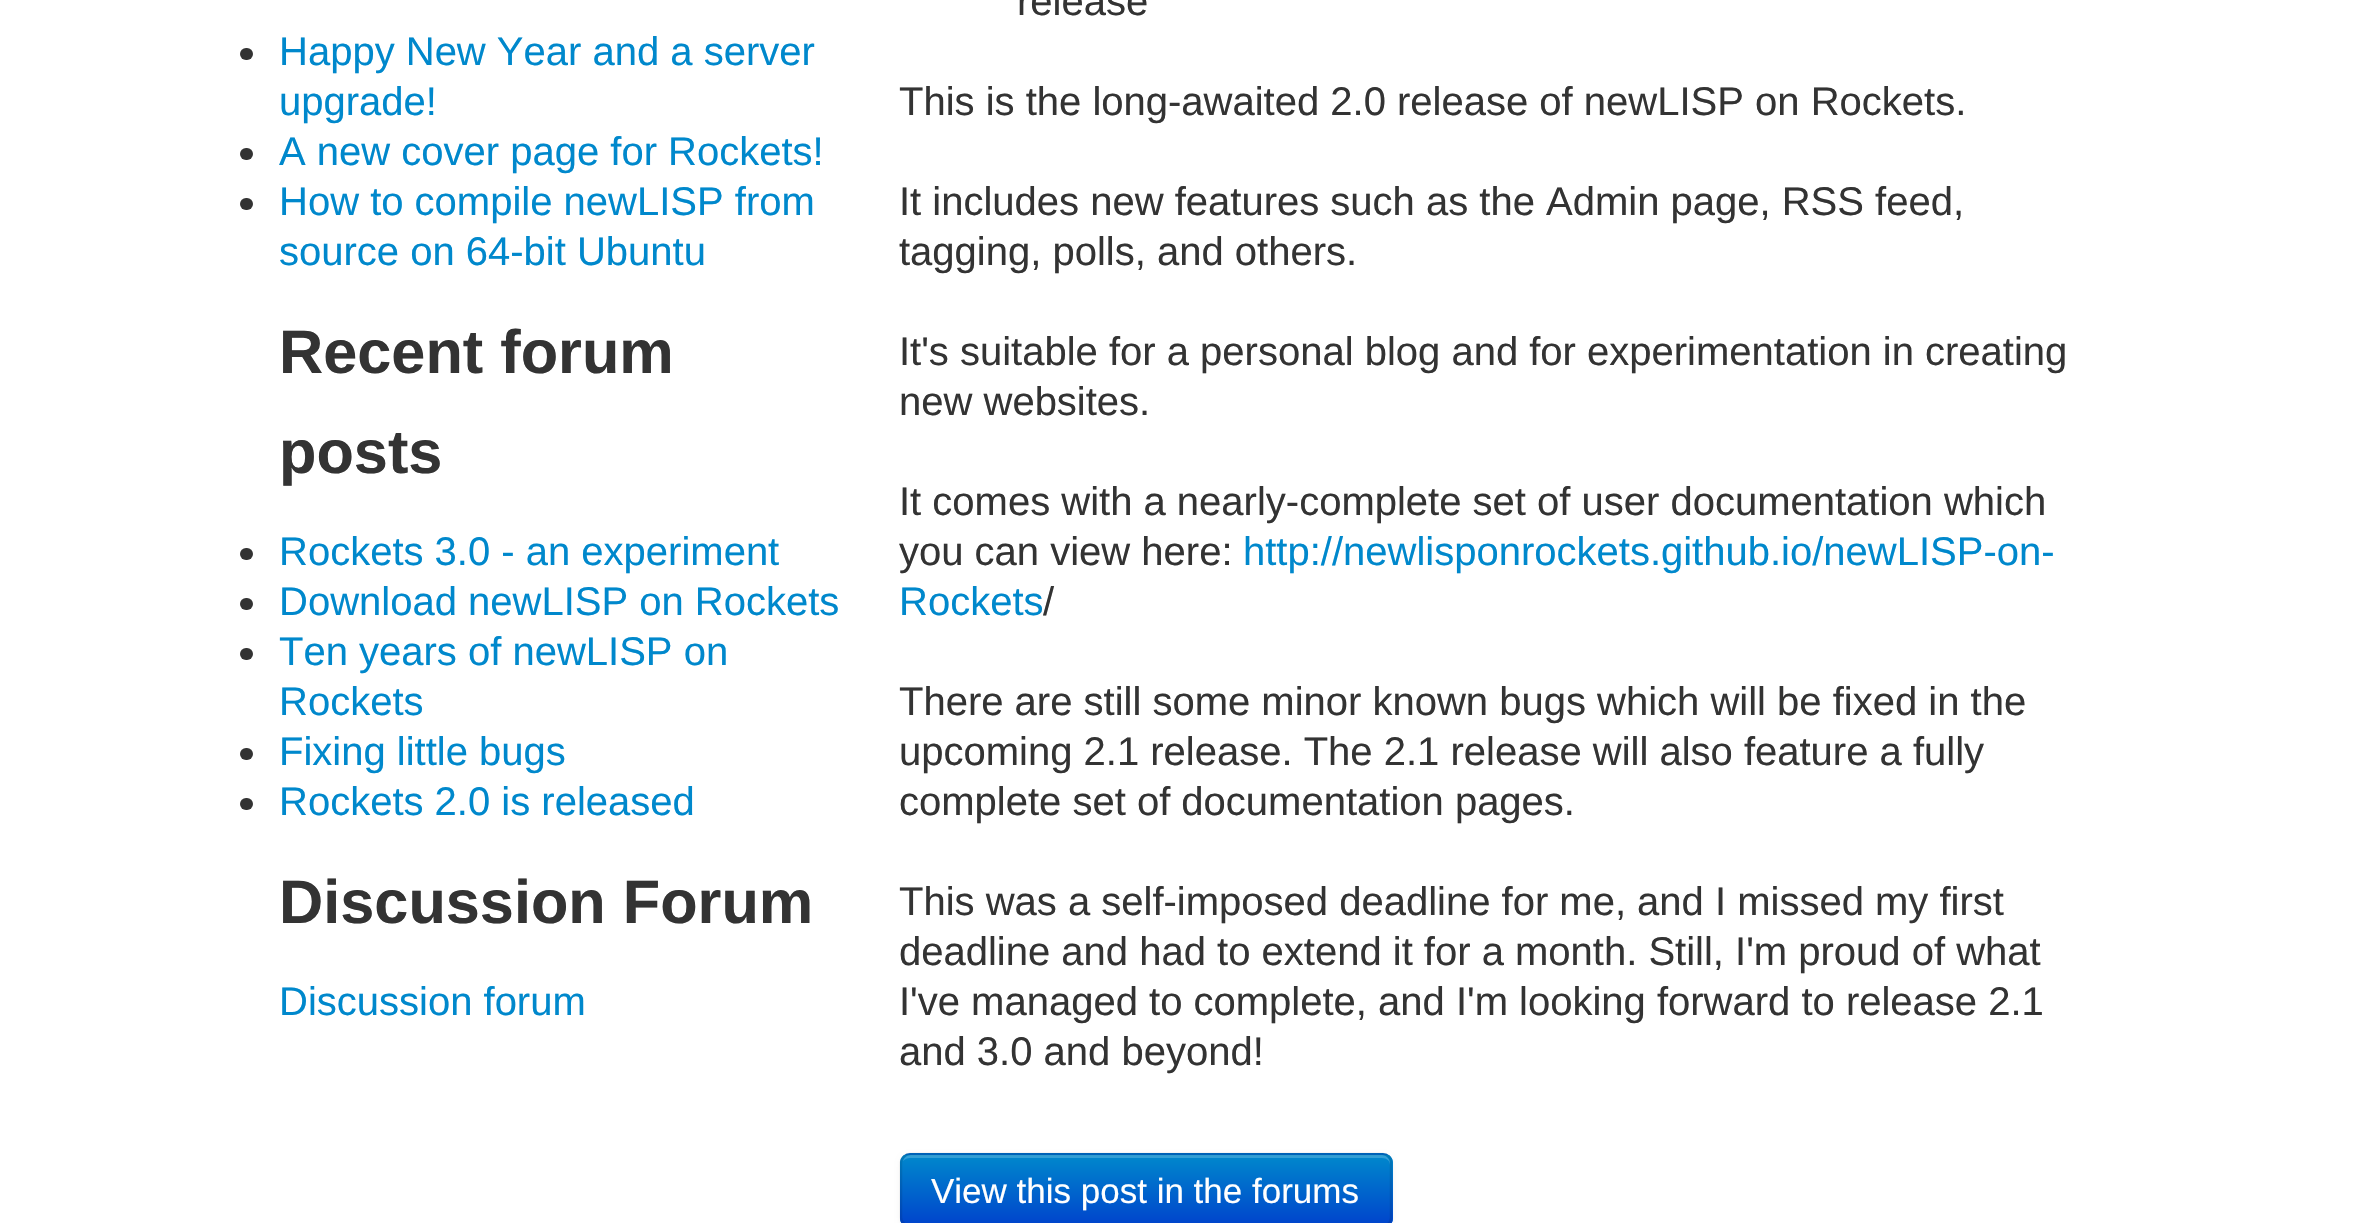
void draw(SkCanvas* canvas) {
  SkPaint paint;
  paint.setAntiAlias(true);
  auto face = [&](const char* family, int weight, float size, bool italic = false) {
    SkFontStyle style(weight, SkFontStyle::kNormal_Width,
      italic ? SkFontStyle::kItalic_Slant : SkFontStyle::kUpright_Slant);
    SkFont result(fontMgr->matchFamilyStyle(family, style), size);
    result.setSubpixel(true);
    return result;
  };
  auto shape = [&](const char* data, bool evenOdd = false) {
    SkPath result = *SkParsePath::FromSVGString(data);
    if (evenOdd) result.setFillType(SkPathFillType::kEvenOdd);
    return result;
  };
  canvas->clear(0xffffffff);
  paint.setColor(0xff333333);
  canvas->drawRoundRect(SkRect::MakeXYWH(240, 48, 13, 12), 6, 6, paint);
  canvas->drawRoundRect(SkRect::MakeXYWH(240, 148, 13, 12), 6, 6, paint);
  canvas->drawRoundRect(SkRect::MakeXYWH(240, 198, 13, 12), 6, 6, paint);
  canvas->drawRoundRect(SkRect::MakeXYWH(240, 548, 13, 12), 6, 6, paint);
  canvas->drawRoundRect(SkRect::MakeXYWH(240, 598, 13, 12), 6, 6, paint);
  canvas->drawRoundRect(SkRect::MakeXYWH(240, 648, 13, 12), 6, 6, paint);
  canvas->drawRoundRect(SkRect::MakeXYWH(240, 748, 13, 12), 6, 6, paint);
  canvas->drawRoundRect(SkRect::MakeXYWH(240, 798, 13, 12), 6, 6, paint);
  paint.setColor(0x0d000000);
  paint.setMaskFilter(SkMaskFilter::MakeBlur(kNormal_SkBlurStyle, 2.5f));
  canvas->drawRoundRect(SkRect::MakeXYWH(900, 1155, 493, 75), 10, 10, paint);
  paint.setMaskFilter(nullptr);
  paint.setColor(0xff006dcc);
  canvas->drawRoundRect(SkRect::MakeXYWH(900, 1153, 493, 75), 10, 10, paint);
  canvas->save();
  canvas->clipPath(shape("M910 1153H1383C1388.5 1153 1393 1157.5 1393 1163V1218C1393 1223.5 1388.5 1228 1383 1228H910C904.5 1228 900 1223.5 900 1218V1163C900 1157.5 904.5 1153 910 1153Z"), true);
  {
    const SkColor colors[] = {0xff0088cc, 0xff0044cc};
    const float stops[] = {0, 1};
    const SkPoint ends[] = {{1146, 1155}, {1146, 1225}};
    paint.setShader(SkGradientShader::MakeLinear(ends, colors, stops, 2, SkTileMode::kClamp));
    paint.setAlpha(255);
  }
  canvas->drawRect(SkRect::MakeXYWH(900, 1155, 493, 68), paint);
  canvas->restore();
  paint.setShader(nullptr);
  paint.setColor(0x33ffffff);
  canvas->drawPath(shape("M910 1158H1382C1387 1158 1390 1161 1390 1165V1163C1390 1159 1386 1155 1382 1155H911C907 1155 904 1158 903 1161C905 1159 907 1158 910 1158Z"), paint);
  paint.setStroke(true);
  paint.setStrokeWidth(2.5f);
  paint.setColor(0xff003599);
  canvas->drawPath(shape("M1388.5 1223.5C1387 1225.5 1385 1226 1382.5 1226H910C907.5 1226 905.5 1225.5 904 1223.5"), paint);
  paint.setColor(0x1a000000);
  canvas->drawPath(shape("M904 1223.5C902 1222 901 1220 901 1217.5V1162.5C901 1160 902 1158 904 1156.5C905.5 1154.5 907.5 1154 910 1154H1382.5C1385 1154 1387 1154.5 1388.5 1156.5C1390.5 1158 1391 1160 1391 1162.5V1217.5C1391 1220 1390.5 1222 1388.5 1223.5"), paint);
  auto f0 = face("Liberation Sans", 400, 40);
  paint.setStroke(false);
  paint.setColor(0xff0088cc);
  {
    const struct { const char* s; float x, y; } items[] = {
      {"Happy New Year and a server", 279, 65},
      {"upgrade!", 279, 115},
      {"A new cover page for Rockets!", 279, 165},
      {"How to compile newLISP from", 279, 215},
      {"source on 64-bit Ubuntu", 279, 265},
    };
    for (auto [s, x, y] : items) {
      canvas->drawString(s, x, y, f0, paint);
    }
  }
  auto f1 = face("Liberation Sans", 700, 61.25f);
  paint.setColor(0xff333333);
  canvas->drawString("Recent forum", 279, 373, f1, paint);
  canvas->drawString("posts", 279, 473, f1, paint);
  paint.setColor(0xff0088cc);
  {
    const struct { const char* s; float x, y; } items[] = {
      {"Rockets 3.0 - an experiment", 279, 565},
      {"Download newLISP on Rockets", 279, 615},
      {"Ten years of newLISP on", 279, 665},
      {"Rockets", 279, 715},
      {"Fixing little bugs", 279, 765},
      {"Rockets 2.0 is released", 279, 815},
    };
    for (auto [s, x, y] : items) {
      canvas->drawString(s, x, y, f0, paint);
    }
  }
  paint.setColor(0xff333333);
  canvas->drawString("Discussion Forum", 279, 923, f1, paint);
  paint.setColor(0xff0088cc);
  canvas->drawString("Discussion forum", 279, 1015, f0, paint);
  paint.setColor(0xff333333);
  {
    const struct { const char* s; float x, y; } items[] = {
      {"release", 1017, 15},
      {"This is the long-awaited 2.0 release of newLISP on Rockets.", 899, 115},
      {"It includes new features such as the Admin page, RSS feed,", 899, 215},
      {"tagging, polls, and others.", 899, 265},
      {"It's suitable for a personal blog and for experimentation in creating", 899, 365},
      {"new websites.", 899, 415},
      {"It comes with a nearly-complete set of user documentation which", 899, 515},
      {"you can view here:", 899, 565},
    };
    for (auto [s, x, y] : items) {
      canvas->drawString(s, x, y, f0, paint);
    }
  }
  paint.setColor(0xff0088cc);
  canvas->drawString("http://newlisponrockets.github.io/newLISP-on-", 1243, 565, f0, paint);
  canvas->drawString("Rockets", 899, 615, f0, paint);
  paint.setColor(0xff333333);
  {
    const struct { const char* s; float x, y; } items[] = {
      {"/", 1043, 615},
      {"There are still some minor known bugs which will be fixed in the", 899, 715},
      {"upcoming 2.1 release. The 2.1 release will also feature a fully", 899, 765},
      {"complete set of documentation pages.", 899, 815},
      {"This was a self-imposed deadline for me, and I missed my first", 899, 915},
      {"deadline and had to extend it for a month. Still, I'm proud of what", 899, 965},
      {"I've managed to complete, and I'm looking forward to release 2.1", 899, 1015},
      {"and 3.0 and beyond!", 899, 1065},
    };
    for (auto [s, x, y] : items) {
      canvas->drawString(s, x, y, f0, paint);
    }
  }
  auto f2 = face("Liberation Sans", 400, 35);
  paint.setColor(0xffffffff);
  canvas->drawString("View this post in the forums", 931, 1203, f2, paint);
}
